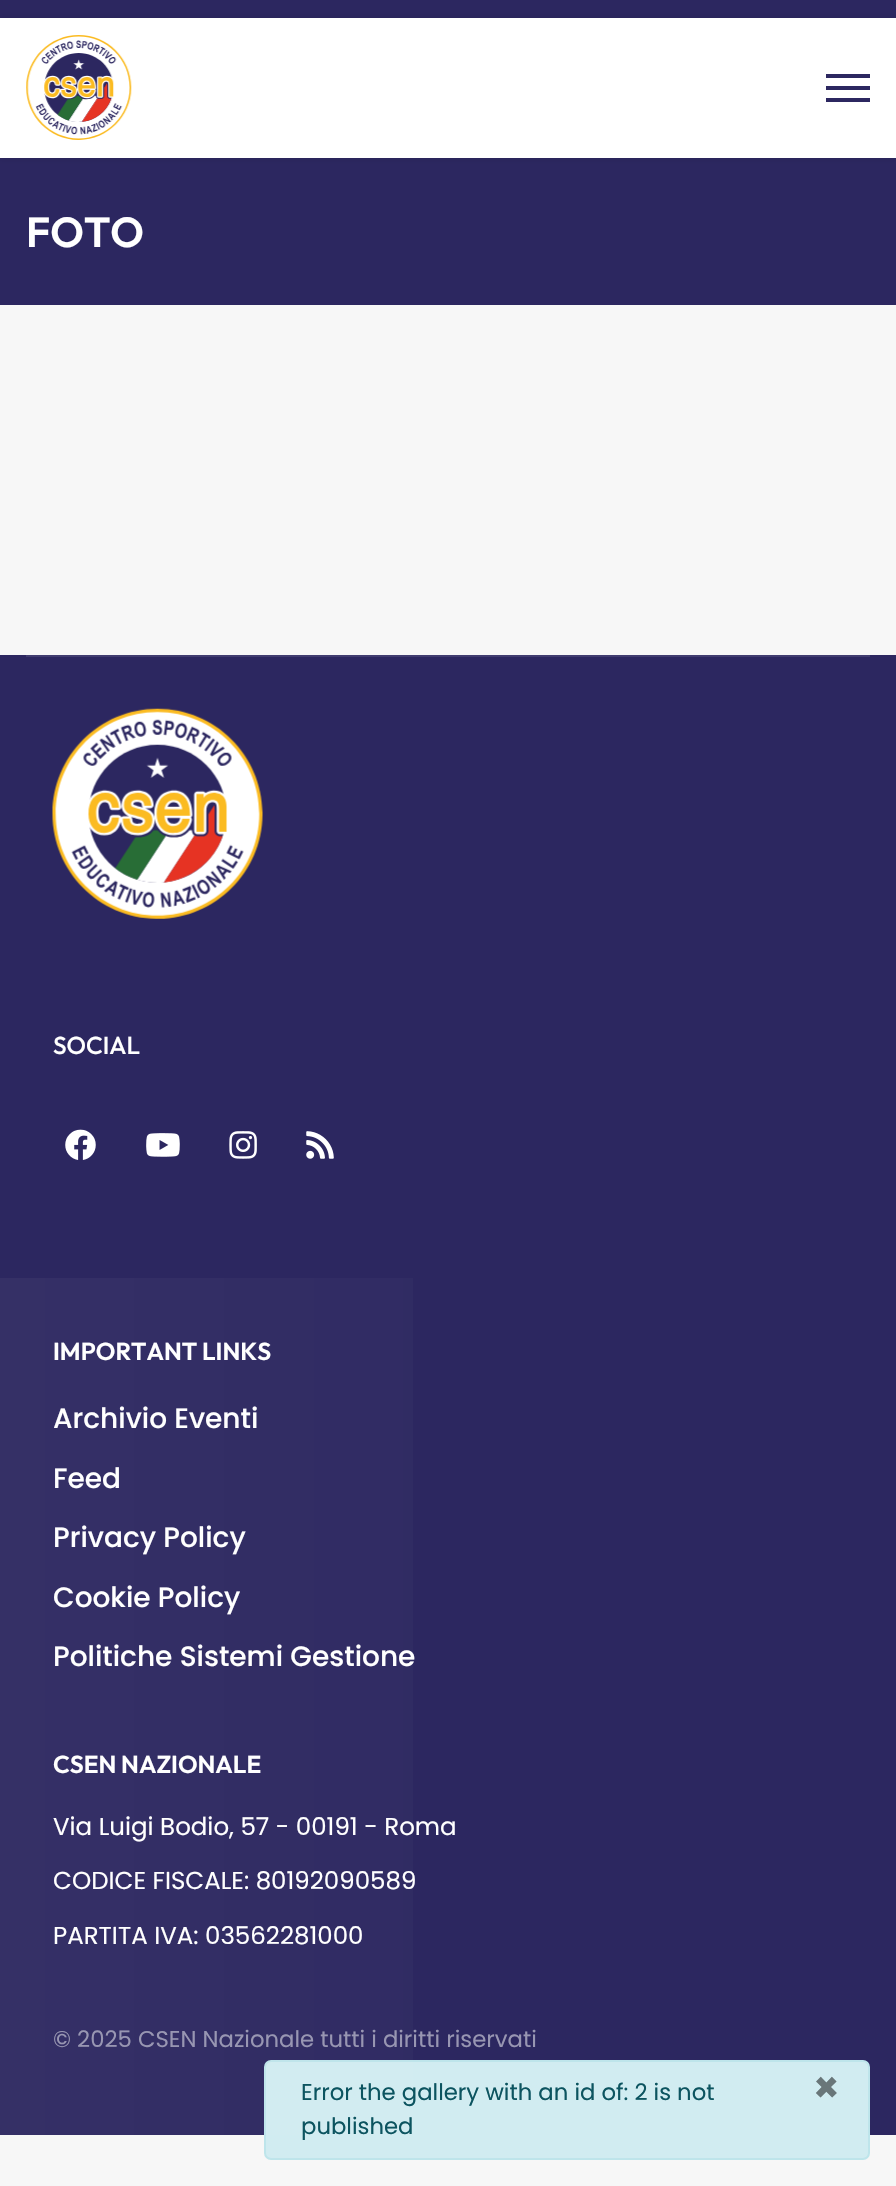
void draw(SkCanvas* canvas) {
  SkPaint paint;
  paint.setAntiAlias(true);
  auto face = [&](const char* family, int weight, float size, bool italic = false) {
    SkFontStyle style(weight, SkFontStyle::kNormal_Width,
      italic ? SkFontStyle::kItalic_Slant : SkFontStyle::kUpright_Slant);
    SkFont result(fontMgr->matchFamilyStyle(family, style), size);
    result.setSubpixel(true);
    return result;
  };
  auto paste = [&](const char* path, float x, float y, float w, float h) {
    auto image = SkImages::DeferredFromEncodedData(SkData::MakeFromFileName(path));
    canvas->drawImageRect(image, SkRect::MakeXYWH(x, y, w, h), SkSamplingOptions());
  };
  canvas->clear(0xfff7f7f7);
  paint.setColor(0xff2c2760);
  canvas->drawRect(SkRect::MakeXYWH(0, 0, 896, 18), paint);
  canvas->drawRect(SkRect::MakeXYWH(0, 158, 896, 147), paint);
  paint.setColor(0x1a000000);
  paint.setMaskFilter(SkMaskFilter::MakeBlur(kNormal_SkBlurStyle, 3.5f));
  canvas->drawRect(SkRect::MakeXYWH(0, 18, 896, 140), paint);
  paint.setMaskFilter(nullptr);
  paint.setColor(0xffffffff);
  canvas->drawRect(SkRect::MakeXYWH(0, 18, 896, 140), paint);
  paste("img/1.png", 26, 35, 106, 105);
  {
    const struct { float x, y, w, h; SkColor color; } items[] = {
      {826, 74, 44, 4, 0xff2c2760},
      {826, 86, 44, 4, 0xff2c2760},
      {826, 98, 44, 4, 0xff2c2760},
      {0, 655, 896, 1480, 0xff2c2760},
      {26, 655, 844, 2, 0xff413d70},
    };
    for (auto [x, y, w, h, color] : items) {
      paint.setColor(color);
      canvas->drawRect(SkRect::MakeXYWH(x, y, w, h), paint);
    }
  }
  paste("img/2.png", 52, 708, 211, 211);
  paste("img/3.png", 65, 1129, 31, 31);
  paste("img/4.png", 146, 1133, 34, 24);
  paste("img/5.png", 229, 1131, 28, 28);
  paste("img/6.png", 306, 1131, 28, 28);
  paint.setColor(0xffd1ecf1);
  canvas->drawRoundRect(SkRect::MakeXYWH(265, 2061, 604, 98), 6, 6, paint);
  paint.setStroke(true);
  paint.setStrokeWidth(2);
  paint.setColor(0xffbee5eb);
  canvas->drawRoundRect(SkRect::MakeXYWH(265, 2061, 604, 98), 6, 6, paint);
  paint.setStroke(false);
  {
    const SkColor colors[] = {0x0affffff, 0x00ffffff};
    const float stops[] = {0, 1};
    const SkPoint ends[] = {{0, 1706}, {896, 1706}};
    paint.setShader(SkGradientShader::MakeLinear(ends, colors, stops, 2, SkTileMode::kClamp));
    paint.setAlpha(255);
  }
  canvas->drawRect(SkRect::MakeXYWH(0, 1278, 413, 857), paint);
  auto f0 = face("Outfit", 600, 42);
  paint.setShader(nullptr);
  paint.setColor(0xffffffff);
  canvas->drawString("FOTO", 26, 247, f0, paint);
  auto f1 = face("Outfit", 500, 24.5f);
  canvas->drawString("SOCIAL", 53, 1054, f1, paint);
  auto f2 = face("Outfit", 600, 24.5f);
  canvas->drawString("IMPORTANT LINKS", 53, 1360, f2, paint);
  auto f3 = face("Poppins", 500, 28);
  {
    const struct { const char* s; float x, y; } items[] = {
      {"Archivio Eventi", 53, 1428},
      {"Feed", 53, 1488},
      {"Privacy Policy", 53, 1547},
      {"Cookie Policy", 53, 1607},
      {"Politiche Sistemi Gestione", 53, 1666},
    };
    for (auto [s, x, y] : items) {
      canvas->drawString(s, x, y, f3, paint);
    }
  }
  canvas->drawString("CSEN NAZIONALE", 53, 1773, f2, paint);
  auto f4 = face("Poppins", 400, 24.5f);
  {
    const struct { const char* s; float x, y; } items[] = {
      {"Via Luigi Bodio, 57 - 00191 - Roma", 53, 1835},
      {"CODICE FISCALE: 80192090589", 53, 1889},
      {"PARTITA IVA: 03562281000", 53, 1944},
    };
    for (auto [s, x, y] : items) {
      canvas->drawString(s, x, y, f4, paint);
    }
  }
  auto f5 = face("Poppins", 400, 22.75f);
  paint.setColor(0xff9896b2);
  canvas->drawString("© 2025 CSEN Nazionale tutti i diritti riservati", 53, 2047, f5, paint);
  paint.setColor(0xff0c5460);
  canvas->drawString("Error the gallery with an id of: 2 is not", 301, 2100, f5, paint);
  canvas->drawString("published", 301, 2134, f5, paint);
  auto f6 = face("Poppins", 700, 42);
  paint.setColor(0xff697679);
  canvas->drawString("×", 813, 2102, f6, paint);
}
